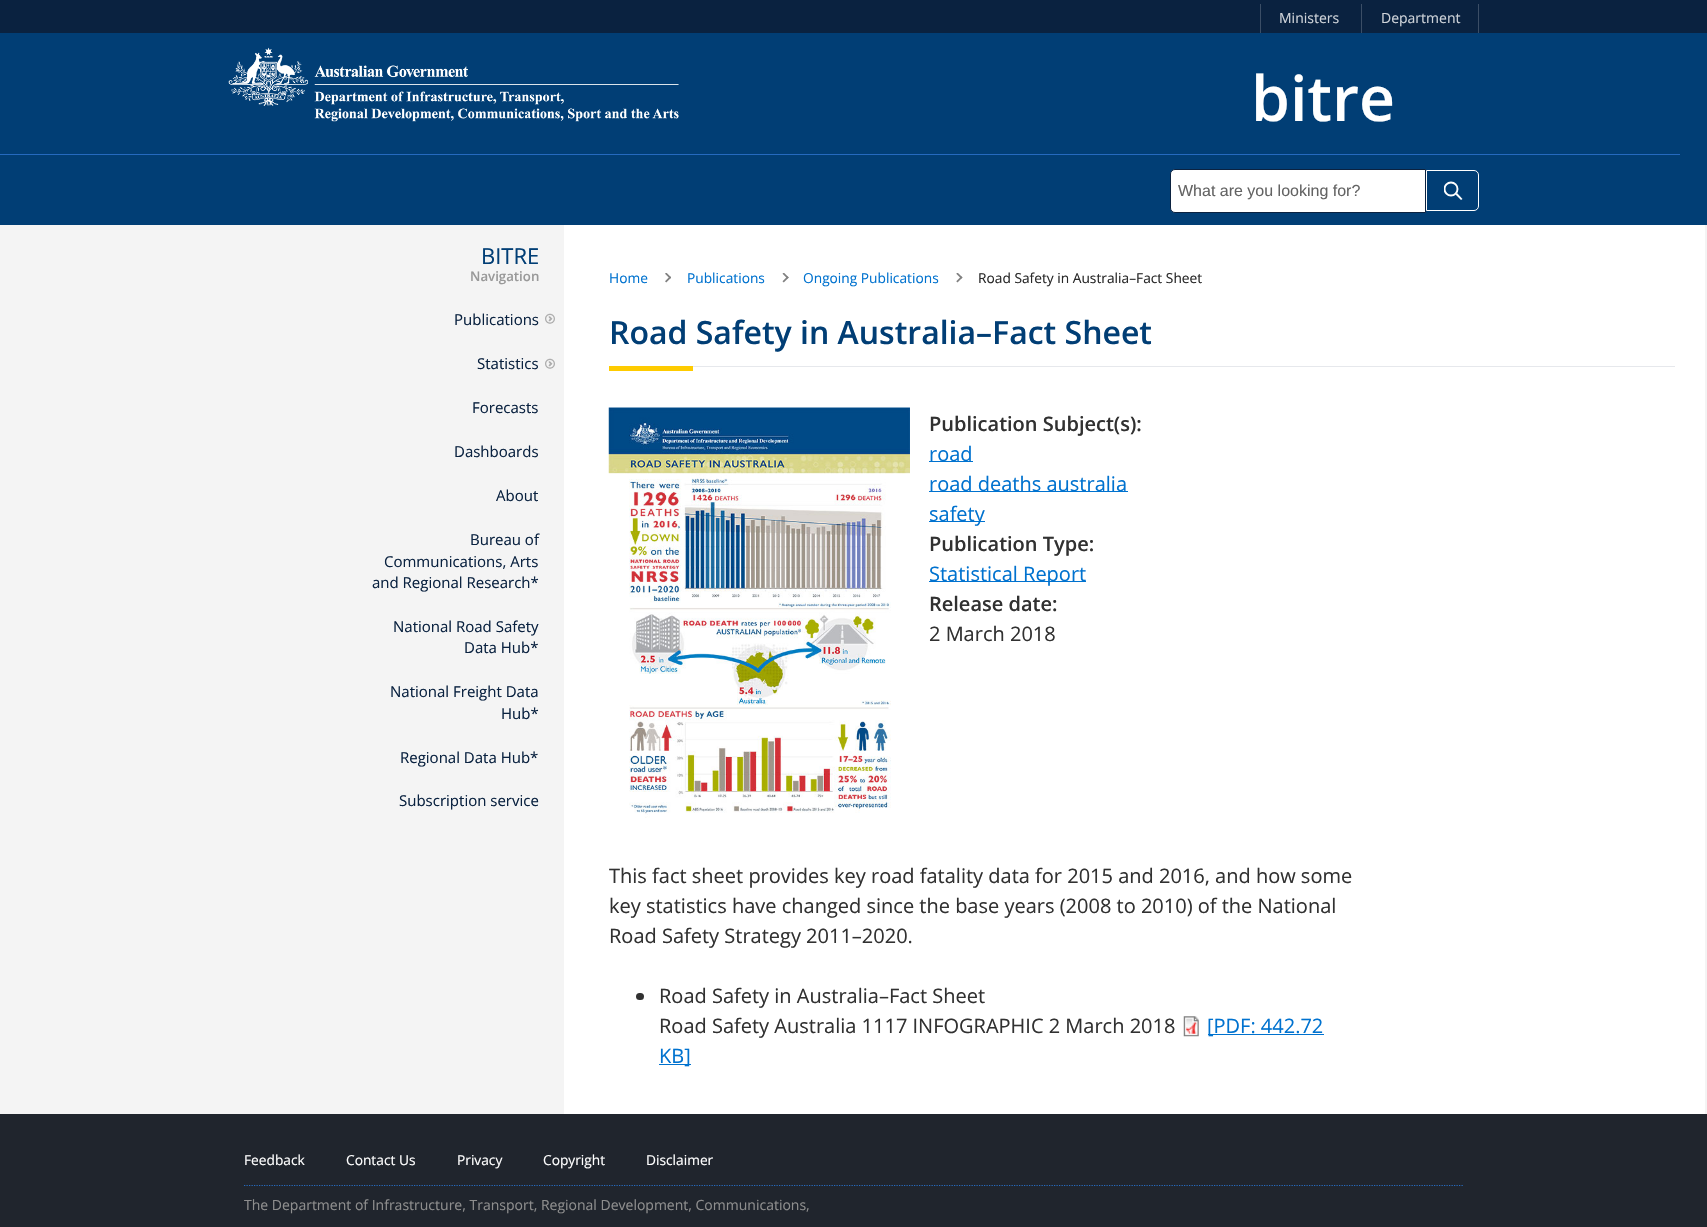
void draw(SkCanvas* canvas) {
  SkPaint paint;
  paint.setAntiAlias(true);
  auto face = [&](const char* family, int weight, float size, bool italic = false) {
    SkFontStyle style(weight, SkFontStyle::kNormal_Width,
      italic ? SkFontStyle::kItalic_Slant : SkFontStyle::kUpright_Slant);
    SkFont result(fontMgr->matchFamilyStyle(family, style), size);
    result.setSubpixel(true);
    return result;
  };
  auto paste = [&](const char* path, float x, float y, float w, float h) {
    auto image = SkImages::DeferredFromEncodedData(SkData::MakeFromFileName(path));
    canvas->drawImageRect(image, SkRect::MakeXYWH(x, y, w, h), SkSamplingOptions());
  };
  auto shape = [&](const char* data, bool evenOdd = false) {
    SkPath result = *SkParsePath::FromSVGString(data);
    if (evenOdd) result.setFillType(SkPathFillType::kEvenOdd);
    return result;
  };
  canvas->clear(0xfff4f4f4);
  {
    const struct { float x, y, w, h; SkColor color; } items[] = {
      {0, 0, 1707, 33, 0xff0a2240},
      {1260, 4, 1, 29, 0xff3b4e66},
      {1478, 4, 1, 29, 0xff3b4e66},
      {1361, 4, 1, 29, 0xff3b4e66},
      {0, 33, 1707, 192, 0xff013e75},
      {0, 154, 1680, 1, 0xff256abf},
    };
    for (auto [x, y, w, h, color] : items) {
      paint.setColor(color);
      canvas->drawRect(SkRect::MakeXYWH(x, y, w, h), paint);
    }
  }
  paste("img/1.png", 228, 47, 451, 75);
  paint.setColor(0xffffffff);
  canvas->drawPath(shape("M1175 169.5H1425.5V212.5H1175C1172.5 212.5 1170.5 210.5 1170.5 208V174C1170.5 171.5 1172.5 169.5 1175 169.5Z"), paint);
  paint.setStroke(true);
  paint.setStrokeWidth(1);
  paint.setColor(0xff0b2240);
  canvas->drawPath(shape("M1175 169.5H1425.5V212.5H1175C1172.5 212.5 1170.5 210.5 1170.5 208V174C1170.5 171.5 1172.5 169.5 1175 169.5Z"), paint);
  canvas->save();
  canvas->clipRect(SkRect::MakeXYWH(1444, 181, 19, 19));
  paint.setStrokeWidth(1.9f);
  paint.setColor(0xffffffff);
  canvas->drawCircle(1451, 189, 6.5f, paint);
  canvas->restore();
  paint.setStroke(false);
  canvas->drawPath(shape("M1457 193L1462.5 199L1461 200L1455.5 194.5Z"), paint);
  paint.setStroke(true);
  paint.setStrokeWidth(1);
  canvas->drawPath(shape("M1426.5 170.5H1474C1476.5 170.5 1478.5 172.5 1478.5 175V206C1478.5 208.5 1476.5 210.5 1474 210.5H1426.5Z"), paint);
  paste("img/2.png", 545, 313, 10, 11);
  paste("img/2.png", 545, 358, 10, 11);
  paint.setStroke(false);
  canvas->drawRect(SkRect::MakeXYWH(564, 225, 1141, 889), paint);
  paste("img/3.png", 665, 273, 6, 10);
  paste("img/4.png", 782, 273, 7, 10);
  paste("img/5.png", 956, 273, 7, 10);
  paint.setColor(0xffe6e8ec);
  canvas->drawRect(SkRect::MakeXYWH(693, 366, 982, 1), paint);
  paint.setColor(0xfffecb00);
  canvas->drawRect(SkRect::MakeXYWH(609, 366, 84, 5), paint);
  paste("img/6.png", 608, 407, 302, 411);
  {
    const struct { float x, y, w, h; SkColor color; } items[] = {
      {929, 461, 44, 1, 0xff0072cf},
      {929, 491, 199, 1, 0xff0072cf},
      {929, 521, 56, 1, 0xff0072cf},
      {929, 581, 157, 1, 0xff0072cf},
    };
    for (auto [x, y, w, h, color] : items) {
      paint.setColor(color);
      canvas->drawRect(SkRect::MakeXYWH(x, y, w, h), paint);
    }
  }
  paint.setColor(0xff313131);
  canvas->drawRoundRect(SkRect::MakeXYWH(636, 993, 8, 7), 3.5f, 3.5f, paint);
  paste("img/7.png", 1183, 1016, 16, 21);
  {
    const struct { float x, y, w, h; SkColor color; } items[] = {
      {1208, 1034, 116, 1, 0xff0072cf},
      {659, 1064, 32, 1, 0xff0072cf},
      {0, 1114, 1707, 113, 0xff20252d},
    };
    for (auto [x, y, w, h, color] : items) {
      paint.setColor(color);
      canvas->drawRect(SkRect::MakeXYWH(x, y, w, h), paint);
    }
  }
  paint.setStroke(true);
  paint.setStrokeWidth(1.2f);
  paint.setColor(0xff256abf);
  paint.setPathEffect(SkDashPathEffect::Make({{1.25f, 1.25f}}, 0));
  canvas->drawPath(shape("M244 1185.5H1464"), paint);
  paint.setPathEffect(nullptr);
  auto f0 = face("Open Sans", 400, 14);
  paint.setStroke(false);
  paint.setColor(0xffced3d9);
  canvas->drawString("Ministers", 1279, 23, f0, paint);
  canvas->drawString("Department", 1381, 23, f0, paint);
  auto f1 = face("Open Sans", 600, 62.5f);
  paint.setColor(0xffffffff);
  canvas->drawString("bitre", 1251, 121, f1, paint);
  auto f2 = face("Liberation Sans", 400, 16);
  paint.setColor(0xff636363);
  canvas->drawString("What are you looking for?", 1178, 196, f2, paint);
  auto f3 = face("Open Sans", 400, 22);
  paint.setColor(0xff013e75);
  canvas->drawString("BITRE", 481, 264, f3, paint);
  auto f4 = face("Open Sans", 600, 13.25f);
  paint.setColor(0xff999999);
  canvas->drawString("Navigation", 470, 281, f4, paint);
  auto f5 = face("Open Sans", 400, 15);
  paint.setColor(0xff0a2240);
  {
    const struct { const char* s; float x, y; } items[] = {
      {"Publications", 454, 325},
      {"Statistics", 477, 369},
      {"Forecasts", 472, 413},
      {"Dashboards", 454, 457},
      {"About", 496, 501},
      {"Bureau of", 470, 545},
      {"Communications, Arts", 384, 567},
      {"and Regional Research*", 372, 588},
      {"National Road Safety", 393, 632},
      {"Data Hub*", 464, 653},
      {"National Freight Data", 390, 697},
      {"Hub*", 501, 719},
      {"Regional Data Hub*", 400, 763},
      {"Subscription service", 399, 806},
    };
    for (auto [s, x, y] : items) {
      canvas->drawString(s, x, y, f5, paint);
    }
  }
  auto f6 = face("Open Sans", 400, 13.75f);
  paint.setColor(0xff0072cf);
  {
    const struct { const char* s; float x, y; } items[] = {
      {"Home", 609, 283},
      {"Publications", 687, 283},
      {"Ongoing Publications", 803, 283},
    };
    for (auto [s, x, y] : items) {
      canvas->drawString(s, x, y, f6, paint);
    }
  }
  paint.setColor(0xff292929);
  canvas->drawString("Road Safety in Australia–Fact Sheet", 978, 283, f6, paint);
  auto f7 = face("Open Sans", 600, 32);
  paint.setColor(0xff013e75);
  canvas->drawString("Road Safety in Australia–Fact Sheet", 609, 344, f7, paint);
  auto f8 = face("Open Sans", 600, 20);
  paint.setColor(0xff313131);
  canvas->drawString("Publication Subject(s):", 929, 431, f8, paint);
  auto f9 = face("Open Sans", 400, 20);
  paint.setColor(0xff0072cf);
  {
    const struct { const char* s; float x, y; } items[] = {
      {"road", 929, 461},
      {"road deaths australia", 929, 491},
      {"safety", 929, 521},
    };
    for (auto [s, x, y] : items) {
      canvas->drawString(s, x, y, f9, paint);
    }
  }
  paint.setColor(0xff313131);
  canvas->drawString("Publication Type:", 929, 551, f8, paint);
  paint.setColor(0xff0072cf);
  canvas->drawString("Statistical Report", 929, 581, f9, paint);
  paint.setColor(0xff313131);
  canvas->drawString("Release date:", 929, 611, f8, paint);
  {
    const struct { const char* s; float x, y; } items[] = {
      {"2 March 2018", 929, 641},
      {"This fact sheet provides key road fatality data for 2015 and 2016, and how some", 609, 883},
      {"key statistics have changed since the base years (2008 to 2010) of the National", 609, 913},
      {"Road Safety Strategy 2011–2020.", 609, 943},
      {"Road Safety in Australia–Fact Sheet", 659, 1003},
      {"Road Safety Australia 1117 INFOGRAPHIC 2 March 2018", 659, 1033},
    };
    for (auto [s, x, y] : items) {
      canvas->drawString(s, x, y, f9, paint);
    }
  }
  paint.setColor(0xff0072cf);
  canvas->drawString("[PDF: 442.72", 1207, 1033, f9, paint);
  canvas->drawString("KB]", 659, 1063, f9, paint);
  paint.setColor(0xffffffff);
  {
    const struct { const char* s; float x, y; } items[] = {
      {"Feedback", 244, 1165},
      {"Contact Us", 346, 1165},
      {"Privacy", 457, 1165},
      {"Copyright", 543, 1165},
      {"Disclaimer", 646, 1165},
    };
    for (auto [s, x, y] : items) {
      canvas->drawString(s, x, y, f6, paint);
    }
  }
  paint.setColor(0xff8e8e8e);
  canvas->drawString("The Department of Infrastructure, Transport, Regional Development, Communications,", 244, 1210, f0, paint);
}
